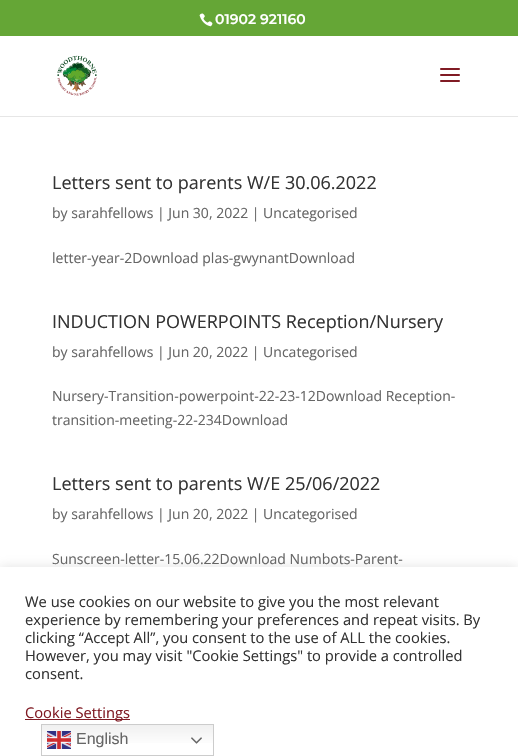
void draw(SkCanvas* canvas) {
  SkPaint paint;
  paint.setAntiAlias(true);
  auto face = [&](const char* family, int weight, float size, bool italic = false) {
    SkFontStyle style(weight, SkFontStyle::kNormal_Width,
      italic ? SkFontStyle::kItalic_Slant : SkFontStyle::kUpright_Slant);
    SkFont result(fontMgr->matchFamilyStyle(family, style), size);
    result.setSubpixel(true);
    return result;
  };
  auto paste = [&](const char* path, float x, float y, float w, float h) {
    auto image = SkImages::DeferredFromEncodedData(SkData::MakeFromFileName(path));
    canvas->drawImageRect(image, SkRect::MakeXYWH(x, y, w, h), SkSamplingOptions());
  };
  canvas->clear(0xffffffff);
  paint.setColor(0xff65a636);
  canvas->drawRect(SkRect::MakeXYWH(0, 0, 518, 36), paint);
  paste("img/1.png", 199, 13, 14, 14);
  paint.setColor(0xffe6e6e6);
  canvas->drawRect(SkRect::MakeXYWH(0, 116, 518, 1), paint);
  paste("img/2.png", 57, 55, 40, 41);
  paste("img/3.png", 440, 68, 20, 14);
  paint.setColor(0x4dacabab);
  paint.setMaskFilter(SkMaskFilter::MakeBlur(kNormal_SkBlurStyle, 5));
  canvas->drawRect(SkRect::MakeXYWH(0, 566, 518, 189), paint);
  paint.setMaskFilter(nullptr);
  paint.setColor(0xffffffff);
  canvas->drawRect(SkRect::MakeXYWH(0, 567, 518, 189), paint);
  paint.setColor(0xff801b24);
  canvas->drawRect(SkRect::MakeXYWH(25, 719, 105, 1), paint);
  {
    const SkColor colors[] = {0xffefefef, 0xffffffff};
    const float stops[] = {0, 0.7f};
    const SkPoint ends[] = {{128, 724}, {128, 756}};
    paint.setShader(SkGradientShader::MakeLinear(ends, colors, stops, 2, SkTileMode::kClamp));
    paint.setAlpha(255);
  }
  canvas->drawRect(SkRect::MakeXYWH(42, 725, 171, 18), paint);
  paint.setStroke(true);
  paint.setStrokeWidth(1);
  paint.setShader(nullptr);
  paint.setColor(0xffcccccc);
  canvas->drawRect(SkRect::MakeXYWH(41.5f, 724.5f, 172, 31), paint);
  paste("img/4.png", 47, 731, 24, 18);
  paste("img/5.png", 191, 737, 11, 7);
  auto f0 = face("Montserrat", 100, 14);
  paint.setStroke(false);
  paint.setColor(0xffffffff);
  canvas->drawString("01902 921160", 215, 24, f0, paint);
  auto f1 = face("Open Sans", 400, 18);
  paint.setColor(0xff333333);
  canvas->drawString("Letters sent to parents W/E 30.06.2022", 52, 189, f1, paint);
  auto f2 = face("Open Sans", 400, 14);
  paint.setColor(0xff666666);
  canvas->drawString("by sarahfellows | Jun 30, 2022 | Uncategorised", 52, 218, f2, paint);
  canvas->drawString("letter-year-2Download plas-gwynantDownload", 52, 263, f2, paint);
  paint.setColor(0xff333333);
  canvas->drawString("INDUCTION POWERPOINTS Reception/Nursery", 52, 328, f1, paint);
  paint.setColor(0xff666666);
  {
    const struct { const char* s; float x, y; } items[] = {
      {"by sarahfellows | Jun 20, 2022 | Uncategorised", 52, 357},
      {"Nursery-Transition-powerpoint-22-23-12Download Reception-", 52, 401},
      {"transition-meeting-22-234Download", 52, 425},
    };
    for (auto [s, x, y] : items) {
      canvas->drawString(s, x, y, f2, paint);
    }
  }
  paint.setColor(0xff333333);
  canvas->drawString("Letters sent to parents W/E 25/06/2022", 52, 490, f1, paint);
  paint.setColor(0xff666666);
  canvas->drawString("by sarahfellows | Jun 20, 2022 | Uncategorised", 52, 519, f2, paint);
  canvas->drawString("Sunscreen-letter-15.06.22Download Numbots-Parent-", 52, 564, f2, paint);
  auto f3 = face("Open Sans", 400, 14.7f);
  paint.setColor(0xff333333);
  {
    const struct { const char* s; float x, y; } items[] = {
      {"We use cookies on our website to give you the most relevant", 25, 607},
      {"experience by remembering your preferences and repeat visits. By", 25, 625},
      {"clicking “Accept All”, you consent to the use of ALL the cookies.", 25, 643},
      {"However, you may visit \"Cookie Settings\" to provide a controlled", 25, 661},
      {"consent.", 25, 679},
    };
    for (auto [s, x, y] : items) {
      canvas->drawString(s, x, y, f3, paint);
    }
  }
  paint.setColor(0xff801b24);
  canvas->drawString("Cookie Settings", 25, 718, f3, paint);
  auto f4 = face("Liberation Sans", 400, 16);
  paint.setColor(0xff666666);
  canvas->drawString("English", 76, 744, f4, paint);
}
